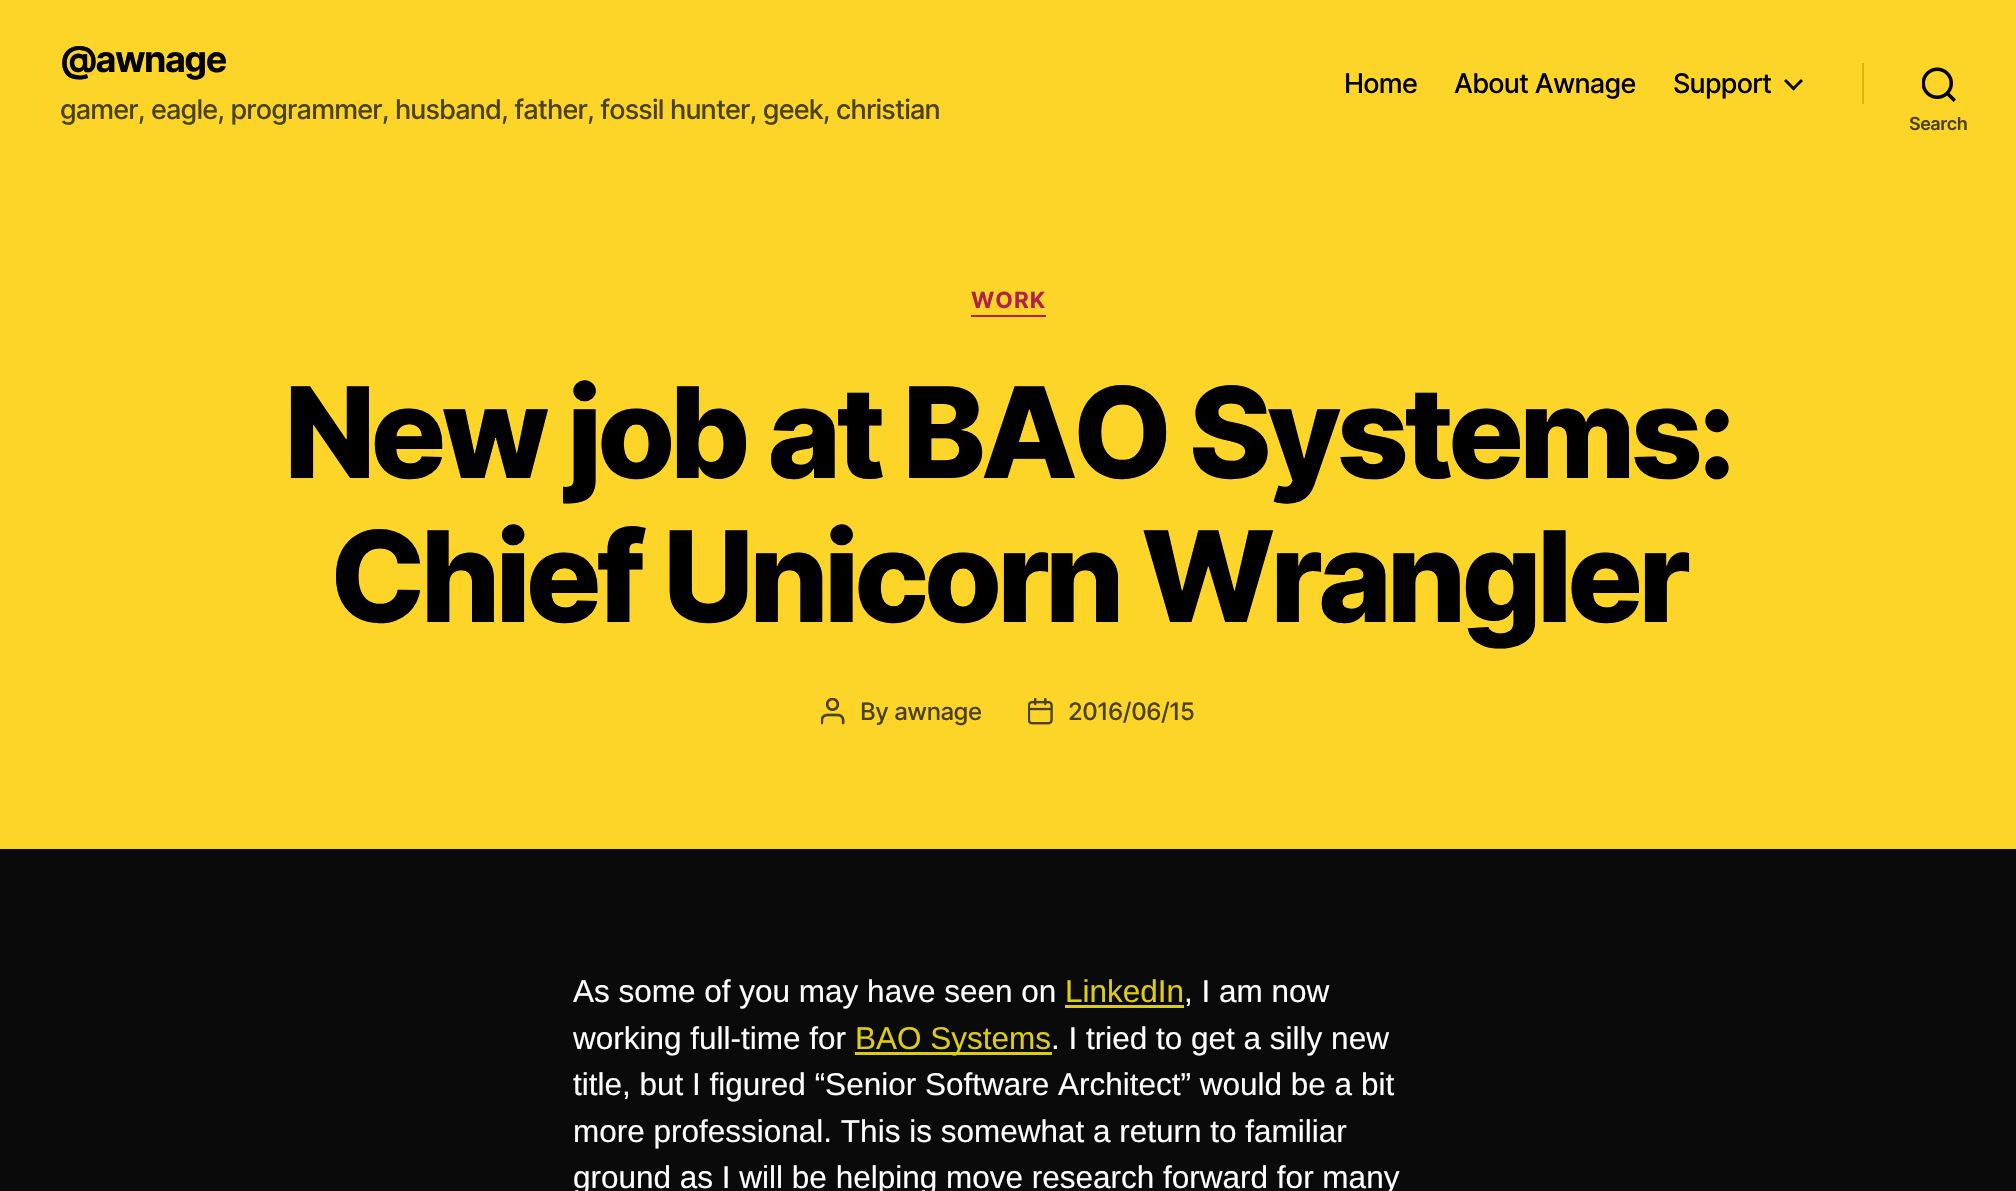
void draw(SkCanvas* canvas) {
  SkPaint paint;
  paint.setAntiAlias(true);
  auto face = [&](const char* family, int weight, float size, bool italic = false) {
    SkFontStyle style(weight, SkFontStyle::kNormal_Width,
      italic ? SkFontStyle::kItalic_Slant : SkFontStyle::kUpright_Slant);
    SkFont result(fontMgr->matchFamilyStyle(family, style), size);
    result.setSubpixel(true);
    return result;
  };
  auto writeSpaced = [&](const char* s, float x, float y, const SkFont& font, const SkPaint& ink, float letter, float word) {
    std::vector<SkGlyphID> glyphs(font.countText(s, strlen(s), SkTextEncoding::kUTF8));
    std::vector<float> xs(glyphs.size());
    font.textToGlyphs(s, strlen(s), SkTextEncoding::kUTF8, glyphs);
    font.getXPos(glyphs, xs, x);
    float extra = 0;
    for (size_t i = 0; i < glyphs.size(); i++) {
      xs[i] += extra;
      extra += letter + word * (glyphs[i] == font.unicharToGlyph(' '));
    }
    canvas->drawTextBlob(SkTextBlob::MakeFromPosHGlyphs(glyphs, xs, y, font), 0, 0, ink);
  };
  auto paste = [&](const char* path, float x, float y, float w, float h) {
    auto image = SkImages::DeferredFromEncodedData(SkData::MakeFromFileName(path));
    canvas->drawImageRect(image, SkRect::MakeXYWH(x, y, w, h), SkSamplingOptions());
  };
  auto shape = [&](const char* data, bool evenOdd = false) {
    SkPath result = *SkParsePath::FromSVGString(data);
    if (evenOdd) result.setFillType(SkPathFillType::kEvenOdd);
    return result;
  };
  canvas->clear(0xff0a0a0a);
  paint.setColor(0xfffcd528);
  canvas->drawRect(SkRect::MakeXYWH(0, 0, 2016, 849), paint);
  paint.setColor(0xff000000);
  canvas->drawPath(shape("M1784 81L1786 79L1795.5 88.5L1793.5 90.5Z"), paint);
  canvas->drawPath(shape("M1791.5 88.5L1801 79L1803 81L1793.5 90.5Z"), paint);
  paint.setColor(0xffdeb502);
  canvas->drawRect(SkRect::MakeXYWH(1862, 63, 2, 41), paint);
  paste("img/1.png", 1922, 67, 34, 35);
  paint.setColor(0xffb42148);
  canvas->drawRect(SkRect::MakeXYWH(971, 315, 75, 2), paint);
  paste("img/2.png", 821, 698, 24, 27);
  paste("img/3.png", 1028, 698, 25, 27);
  paint.setColor(0xffddcc11);
  canvas->drawRect(SkRect::MakeXYWH(1065, 1005, 119, 3), paint);
  canvas->drawRect(SkRect::MakeXYWH(855, 1052, 197, 3), paint);
  auto f0 = face("Inter", 700, 36);
  paint.setColor(0xff000000);
  writeSpaced("@awnage", 60, 72, f0, paint, -1.5f, 0);
  auto f1 = face("Inter", 500, 27);
  paint.setColor(0xff4b421a);
  writeSpaced("gamer, eagle, programmer, husband, father, fossil hunter, geek, christian", 60, 119, f1, paint, -0.85f, 0);
  paint.setColor(0xff000000);
  {
    const struct { const char* s; float x, y; } items[] = {
      {"Home", 1344, 93},
      {"About Awnage", 1454, 93},
      {"Support", 1673, 93},
    };
    for (auto [s, x, y] : items) {
      writeSpaced(s, x, y, f1, paint, -0.75f, 0);
    }
  }
  auto f2 = face("Inter", 600, 18);
  paint.setColor(0xff4b421a);
  writeSpaced("Search", 1909, 130, f2, paint, -0.5f, 0);
  auto f3 = face("Inter", 700, 22.5f);
  paint.setColor(0xffb42148);
  writeSpaced("WORK", 971, 308, f3, paint, 1, 0);
  auto f4 = face("Inter", 800, 126);
  paint.setColor(0xff000000);
  writeSpaced("New job at BAO Systems:", 284, 478, f4, paint, -5.25f, 0);
  writeSpaced("Chief Unicorn Wrangler", 330, 622, f4, paint, -5.25f, 0);
  auto f5 = face("Inter", 500, 24);
  paint.setColor(0xff4b421a);
  writeSpaced("By awnage", 860, 720, f5, paint, -0.5f, 0);
  writeSpaced("2016/06/15", 1068, 720, f5, paint, -0.5f, 0);
  auto f6 = face("Liberation Sans", 400, 31.5f);
  paint.setColor(0xffffffff);
  canvas->drawString("As some of you may have seen on", 573, 1002, f6, paint);
  paint.setColor(0xffddcc11);
  canvas->drawString("LinkedIn", 1065, 1002, f6, paint);
  paint.setColor(0xffffffff);
  canvas->drawString(", I am now", 1184, 1002, f6, paint);
  canvas->drawString("working full-time for", 573, 1049, f6, paint);
  paint.setColor(0xffddcc11);
  canvas->drawString("BAO Systems", 855, 1049, f6, paint);
  paint.setColor(0xffffffff);
  {
    const struct { const char* s; float x, y; } items[] = {
      {". I tried to get a silly new", 1051, 1049},
      {"title, but I figured “Senior Software Architect” would be a bit", 573, 1095},
      {"more professional. This is somewhat a return to familiar", 573, 1142},
      {"ground as I will be helping move research forward for many", 573, 1188},
    };
    for (auto [s, x, y] : items) {
      canvas->drawString(s, x, y, f6, paint);
    }
  }
}
